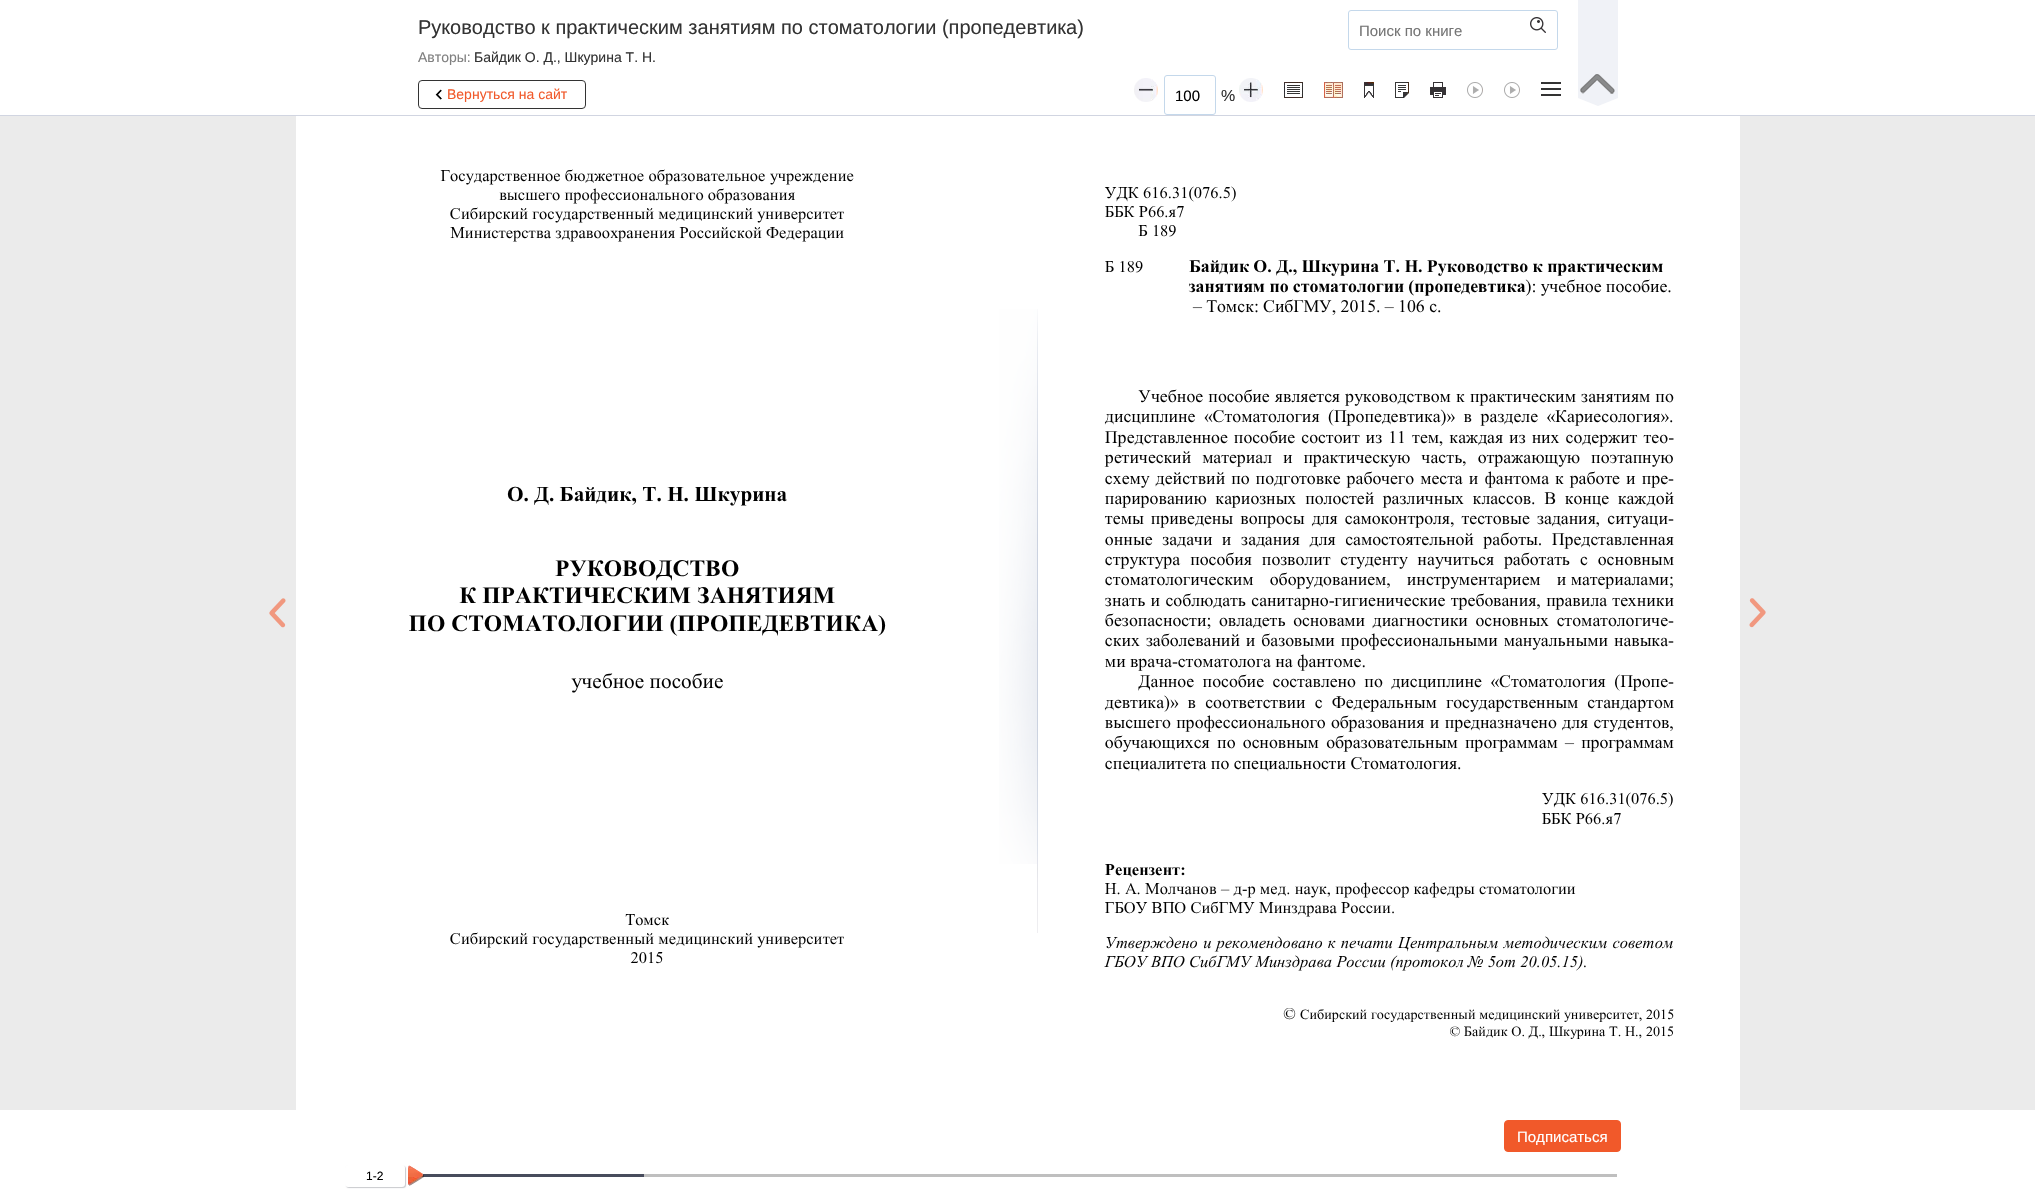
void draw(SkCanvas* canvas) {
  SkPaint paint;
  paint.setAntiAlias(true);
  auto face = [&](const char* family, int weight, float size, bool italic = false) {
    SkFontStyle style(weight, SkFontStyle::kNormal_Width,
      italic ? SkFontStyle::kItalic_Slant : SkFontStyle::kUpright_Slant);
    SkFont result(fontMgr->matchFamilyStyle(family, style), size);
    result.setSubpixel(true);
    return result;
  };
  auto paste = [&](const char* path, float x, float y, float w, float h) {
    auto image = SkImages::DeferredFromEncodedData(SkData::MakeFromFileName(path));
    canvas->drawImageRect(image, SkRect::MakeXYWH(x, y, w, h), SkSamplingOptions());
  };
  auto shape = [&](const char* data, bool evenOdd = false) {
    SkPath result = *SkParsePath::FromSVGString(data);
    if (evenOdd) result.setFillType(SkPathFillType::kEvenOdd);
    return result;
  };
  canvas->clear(0xffffffff);
  paint.setColor(0xffd1d5e1);
  canvas->drawRect(SkRect::MakeXYWH(0, 115, 2035, 1), paint);
  paint.setStroke(true);
  paint.setStrokeWidth(1);
  paint.setColor(0xff333333);
  canvas->drawRoundRect(SkRect::MakeXYWH(418.5f, 80.5f, 167, 28), 3.5f, 3.5f, paint);
  paste("img/1.png", 435, 89, 7, 11);
  paint.setColor(0xffc4d8eb);
  canvas->drawRoundRect(SkRect::MakeXYWH(1348.5f, 10.5f, 209, 39), 2.5f, 2.5f, paint);
  paste("img/2.png", 1530, 17, 16, 16);
  paint.setStroke(false);
  paint.setColor(0xfff0f2f7);
  canvas->drawRect(SkRect::MakeXYWH(1578, 0, 40, 106), paint);
  paste("img/3.png", 1580, 74, 35, 20);
  paint.setColor(0xffffffff);
  canvas->drawPath(shape("M1618 98V114L1598 106ZM1578 114V98L1598 106Z"), paint);
  paste("img/4.png", 1134, 78, 24, 24);
  paint.setStroke(true);
  paint.setColor(0xffc4d8eb);
  canvas->drawRoundRect(SkRect::MakeXYWH(1164.5f, 75.5f, 51, 39), 2.5f, 2.5f, paint);
  paste("img/5.png", 1239, 78, 24, 24);
  paste("img/6.png", 1284, 82, 19, 16);
  paste("img/7.png", 1324, 82, 19, 16);
  paste("img/8.png", 1364, 82, 10, 16);
  paste("img/9.png", 1395, 82, 14, 16);
  paste("img/10.png", 1430, 82, 16, 16);
  paste("img/11.png", 1467, 82, 16, 16);
  paste("img/11.png", 1504, 82, 16, 16);
  paste("img/12.png", 1541, 82, 20, 14);
  paint.setStroke(false);
  paint.setColor(0xffebebeb);
  canvas->drawRect(SkRect::MakeXYWH(0, 116, 2035, 994), paint);
  paste("img/13.png", 269, 598, 17, 30);
  paint.setColor(0xffffffff);
  canvas->drawRect(SkRect::MakeXYWH(296, 116, 1444, 994), paint);
  paste("img/14.png", 409, 169, 477, 795);
  paste("img/15.png", 999, 309, 39, 624);
  paste("img/16.png", 1104, 186, 570, 853);
  paste("img/17.png", 1749, 598, 17, 30);
  paint.setColor(0xfff1592a);
  canvas->drawRoundRect(SkRect::MakeXYWH(1504.5f, 1120.5f, 116, 31), 3.5f, 3.5f, paint);
  paint.setStroke(true);
  canvas->drawRoundRect(SkRect::MakeXYWH(1504.5f, 1120.5f, 116, 31), 3.5f, 3.5f, paint);
  paint.setStroke(false);
  paint.setColor(0xff474c5c);
  canvas->drawRect(SkRect::MakeXYWH(418, 1174, 226, 3), paint);
  paste("img/18.png", 408, 1165, 16, 21);
  paint.setColor(0xffc9cace);
  paint.setMaskFilter(SkMaskFilter::MakeBlur(kNormal_SkBlurStyle, 0.5f));
  canvas->drawRoundRect(SkRect::MakeXYWH(346, 1166, 60, 22), 3, 3, paint);
  paint.setMaskFilter(nullptr);
  paint.setColor(0xffffffff);
  canvas->drawRoundRect(SkRect::MakeXYWH(345, 1165, 60, 22), 3, 3, paint);
  paint.setColor(0xffbfbfbf);
  canvas->drawRect(SkRect::MakeXYWH(644, 1174, 973, 3), paint);
  auto f0 = face("Liberation Sans", 400, 20);
  paint.setColor(0xff333333);
  canvas->drawString("Руководство к практическим занятиям по стоматологии (пропедевтика)", 418, 34, f0, paint);
  auto f1 = face("Liberation Sans", 400, 14);
  paint.setColor(0xff808080);
  canvas->drawString("Авторы:", 418, 62, f1, paint);
  paint.setColor(0xff333333);
  canvas->drawString("Байдик О. Д., Шкурина Т. Н.", 474, 62, f1, paint);
  paint.setColor(0xfff1592a);
  canvas->drawString("Вернуться на сайт", 447, 99, f1, paint);
  auto f2 = face("Liberation Sans", 400, 15);
  paint.setColor(0xff757575);
  canvas->drawString("Поиск по книге", 1359, 36, f2, paint);
  paint.setColor(0xff000000);
  canvas->drawString("100", 1175, 101, f2, paint);
  auto f3 = face("Liberation Sans", 400, 16);
  paint.setColor(0xff333333);
  canvas->drawString("%", 1221, 101, f3, paint);
  paint.setColor(0xffffffff);
  canvas->drawString("Подписаться", 1517, 1142, f2, paint);
  auto f4 = face("Liberation Sans", 400, 12);
  paint.setColor(0xff000000);
  canvas->drawString("1-2", 366, 1180, f4, paint);
}
